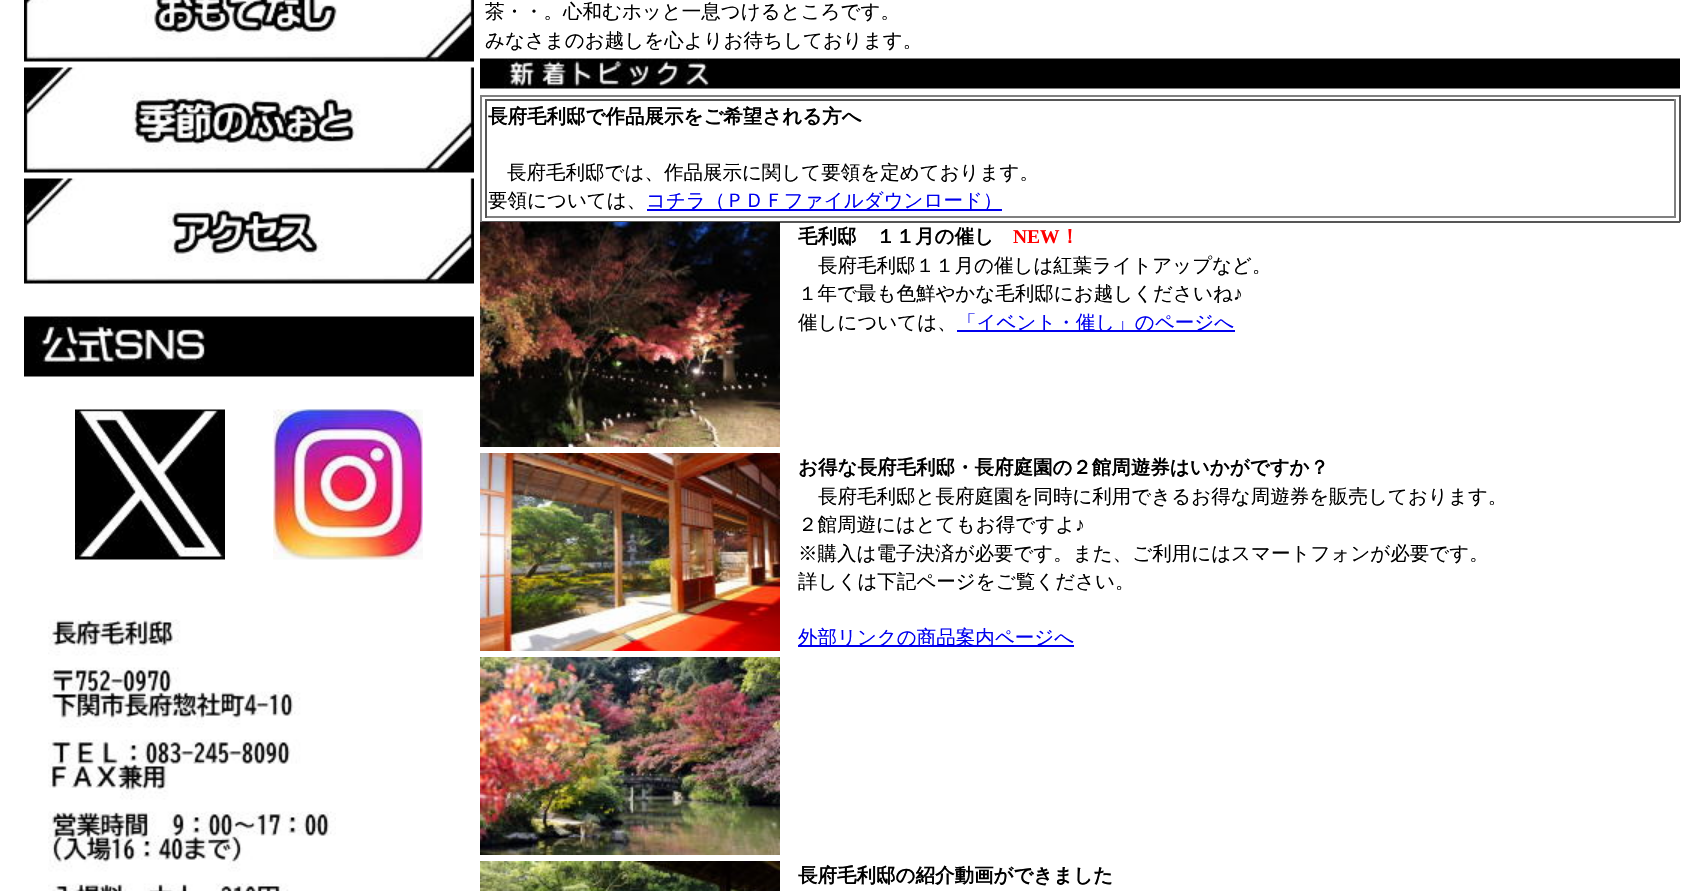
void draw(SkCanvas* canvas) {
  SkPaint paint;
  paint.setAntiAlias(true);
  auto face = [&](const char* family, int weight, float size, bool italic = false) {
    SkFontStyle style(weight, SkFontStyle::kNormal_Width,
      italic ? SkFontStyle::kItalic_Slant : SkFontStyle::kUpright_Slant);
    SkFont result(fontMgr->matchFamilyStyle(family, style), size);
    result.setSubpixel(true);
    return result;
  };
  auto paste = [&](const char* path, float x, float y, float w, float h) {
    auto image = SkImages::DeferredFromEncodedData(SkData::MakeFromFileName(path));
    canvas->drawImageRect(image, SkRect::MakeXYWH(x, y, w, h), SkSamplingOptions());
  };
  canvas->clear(0xffffffff);
  paste("img/1.png", 24, 0, 450, 62);
  paste("img/2.png", 24, 67, 450, 106);
  paste("img/3.png", 24, 178, 450, 106);
  paste("img/4.png", 24, 316, 450, 61);
  paste("img/5.png", 75, 409, 150, 151);
  paste("img/6.png", 273, 409, 150, 151);
  paste("img/7.png", 48, 619, 288, 272);
  paste("img/8.png", 480, 58, 1200, 31);
  {
    const struct { float x, y, w, h; SkColor color; } items[] = {
      {480, 95, 1200, 2, 0xff808080},
      {1679, 95, 2, 127, 0xff555555},
      {480, 221, 1200, 2, 0xff555555},
      {480, 95, 2, 127, 0xff808080},
      {485, 99, 1191, 2, 0xff555555},
      {1674, 99, 2, 119, 0xff808080},
      {485, 216, 1191, 2, 0xff808080},
      {485, 99, 2, 119, 0xff555555},
      {647, 209, 355, 2, 0xff0000ee},
    };
    for (auto [x, y, w, h, color] : items) {
      paint.setColor(color);
      canvas->drawRect(SkRect::MakeXYWH(x, y, w, h), paint);
    }
  }
  paste("img/9.png", 480, 222, 300, 225);
  canvas->drawRect(SkRect::MakeXYWH(957, 330, 278, 2), paint);
  paste("img/10.png", 480, 453, 300, 198);
  paste("img/11.png", 480, 657, 300, 198);
  canvas->drawRect(SkRect::MakeXYWH(798, 645, 276, 2), paint);
  paste("img/12.png", 480, 861, 300, 30);
  auto f0 = face("WenQuanYi Zen Hei", 500, 19.5f);
  paint.setColor(0xff000000);
  canvas->drawString("茶・・。心和むホッと一息つけるところです。", 485, 18, f0, paint);
  canvas->drawString("みなさまのお越しを心よりお待ちしております。", 485, 47, f0, paint);
  auto f1 = face("WenQuanYi Zen Hei", 700, 19.5f);
  canvas->drawString("長府毛利邸で作品展示をご希望される方へ", 488, 123, f1, paint);
  canvas->drawString("長府毛利邸では、作品展示に関して要領を定めております。", 507, 179, f0, paint);
  canvas->drawString("要領については、", 488, 207, f0, paint);
  paint.setColor(0xff0000ee);
  canvas->drawString("コチラ（ＰＤＦファイルダウンロード）", 646, 207, f0, paint);
  paint.setColor(0xff000000);
  canvas->drawString("毛利邸　１１月の催し", 798, 243, f1, paint);
  auto f2 = face("Liberation Serif", 700, 19.5f);
  paint.setColor(0xffff0000);
  canvas->drawString("NEW", 1013, 243, f2, paint);
  canvas->drawString("！", 1060, 243, f1, paint);
  paint.setColor(0xff000000);
  canvas->drawString("長府毛利邸１１月の催しは紅葉ライトアップなど。", 818, 272, f0, paint);
  canvas->drawString("１年で最も色鮮やかな毛利邸にお越しくださいね", 798, 300, f0, paint);
  auto f3 = face("Liberation Serif", 400, 19.5f);
  canvas->drawString("♪", 1233, 300, f3, paint);
  canvas->drawString("催しについては、", 798, 329, f0, paint);
  paint.setColor(0xff0000ee);
  canvas->drawString("「イベント・催し」のページへ", 957, 329, f0, paint);
  paint.setColor(0xff000000);
  canvas->drawString("お得な長府毛利邸・長府庭園の２館周遊券はいかがですか？", 798, 474, f1, paint);
  canvas->drawString("長府毛利邸と長府庭園を同時に利用できるお得な周遊券を販売しております。", 818, 503, f0, paint);
  canvas->drawString("２館周遊にはとてもお得ですよ", 798, 531, f0, paint);
  canvas->drawString("♪", 1075, 531, f3, paint);
  canvas->drawString("※購入は電子決済が必要です。また、ご利用にはスマートフォンが必要です。", 798, 560, f0, paint);
  canvas->drawString("詳しくは下記ページをご覧ください。", 798, 588, f0, paint);
  paint.setColor(0xff0000ee);
  canvas->drawString("外部リンクの商品案内ページへ", 798, 644, f0, paint);
  paint.setColor(0xff000000);
  canvas->drawString("長府毛利邸の紹介動画ができました", 798, 882, f1, paint);
}
